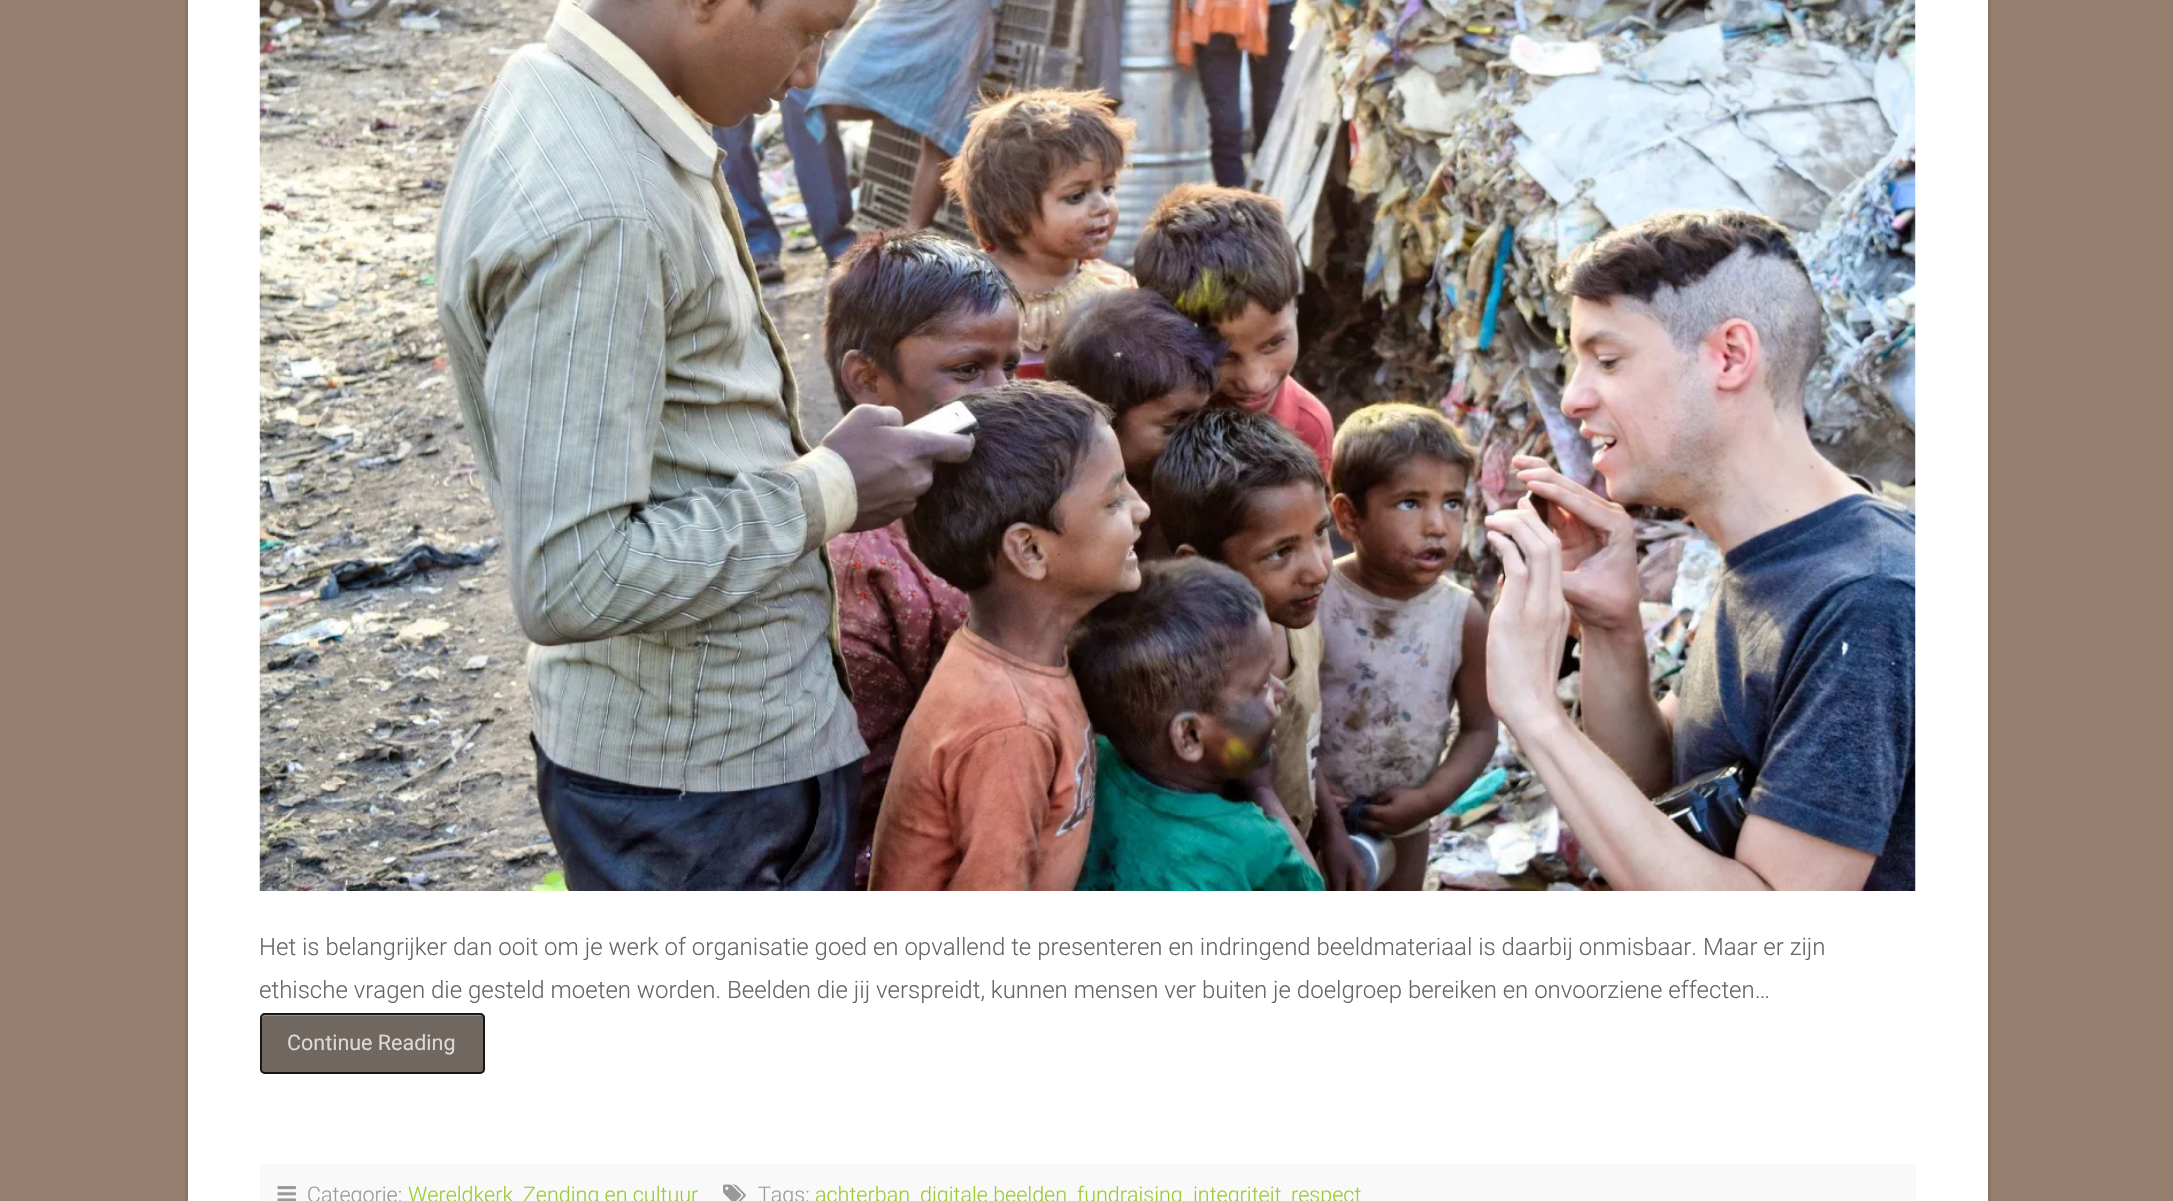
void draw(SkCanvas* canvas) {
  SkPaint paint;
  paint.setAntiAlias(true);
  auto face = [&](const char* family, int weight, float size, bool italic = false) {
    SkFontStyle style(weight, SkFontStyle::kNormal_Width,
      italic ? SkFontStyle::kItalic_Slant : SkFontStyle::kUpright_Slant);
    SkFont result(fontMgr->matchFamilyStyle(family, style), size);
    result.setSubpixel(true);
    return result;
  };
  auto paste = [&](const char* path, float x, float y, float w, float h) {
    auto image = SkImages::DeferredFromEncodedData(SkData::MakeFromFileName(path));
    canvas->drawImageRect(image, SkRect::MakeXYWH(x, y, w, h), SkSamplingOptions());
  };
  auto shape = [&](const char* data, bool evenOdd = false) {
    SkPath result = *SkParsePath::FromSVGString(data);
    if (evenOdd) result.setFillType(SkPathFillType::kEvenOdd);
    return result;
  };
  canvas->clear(0xff967f6f);
  paint.setColor(0x3d000000);
  paint.setMaskFilter(SkMaskFilter::MakeBlur(kNormal_SkBlurStyle, 3));
  canvas->drawRoundRect(SkRect::MakeXYWH(188, -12, 1800, 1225), 3, 3, paint);
  paint.setMaskFilter(nullptr);
  paint.setColor(0xffffffff);
  canvas->drawRect(SkRect::MakeXYWH(188, 0, 1800, 1201), paint);
  paste("img/1.png", 259, 0, 1657, 891);
  paint.setColor(0xff706760);
  canvas->drawRoundRect(SkRect::MakeXYWH(260, 1013, 225, 61), 5, 5, paint);
  paint.setColor(0xff928b86);
  canvas->drawPath(shape("M266 1016H483C483 1015 481 1014 480 1014H264C262 1014 261 1015 261 1017V1070C261 1071 262 1072 263 1073L262 1071V1018C262 1017 264 1016 266 1016Z"), paint);
  paint.setStroke(true);
  paint.setStrokeWidth(2);
  paint.setColor(0xcc000000);
  canvas->drawRoundRect(SkRect::MakeXYWH(261, 1014, 223, 59), 4, 4, paint);
  paint.setStroke(false);
  paint.setColor(0xfff9f9f9);
  canvas->drawRoundRect(SkRect::MakeXYWH(260, 1164, 1656, 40), 3, 3, paint);
  paste("img/2.png", 277, 1186, 19, 15);
  paste("img/3.png", 723, 1184, 23, 17);
  auto f0 = face("Roboto", 300, 24);
  paint.setColor(0xff666666);
  canvas->drawString("Het is belangrijker dan ooit om je werk of organisatie goed en opvallend te presenteren en indringend beeldmateriaal is daarbij onmisbaar. Maar er zijn", 259, 955, f0, paint);
  canvas->drawString("ethische vragen die gesteld moeten worden. Beelden die jij verspreidt, kunnen mensen ver buiten je doelgroep bereiken en onvoorziene effecten…", 259, 998, f0, paint);
  auto f1 = face("Roboto", 400, 21.5f);
  paint.setColor(0xffdbd9d7);
  canvas->drawString("Continue Reading", 287, 1050, f1, paint);
  auto f2 = face("Roboto", 300, 21.5f);
  paint.setColor(0xff999999);
  canvas->drawString("Categorie:", 307, 1202, f2, paint);
  paint.setColor(0xff99cc33);
  canvas->drawString("Wereldkerk", 408, 1202, f2, paint);
  canvas->drawString("Zending en cultuur", 523, 1202, f2, paint);
  paint.setColor(0xff999999);
  canvas->drawString("Tags:", 758, 1202, f2, paint);
  paint.setColor(0xff99cc33);
  {
    const struct { const char* s; float x, y; } items[] = {
      {"achterban", 815, 1202},
      {"digitale beelden", 920, 1202},
      {"fundraising", 1077, 1202},
      {"integriteit", 1193, 1202},
      {"respect", 1291, 1202},
    };
    for (auto [s, x, y] : items) {
      canvas->drawString(s, x, y, f2, paint);
    }
  }
}
